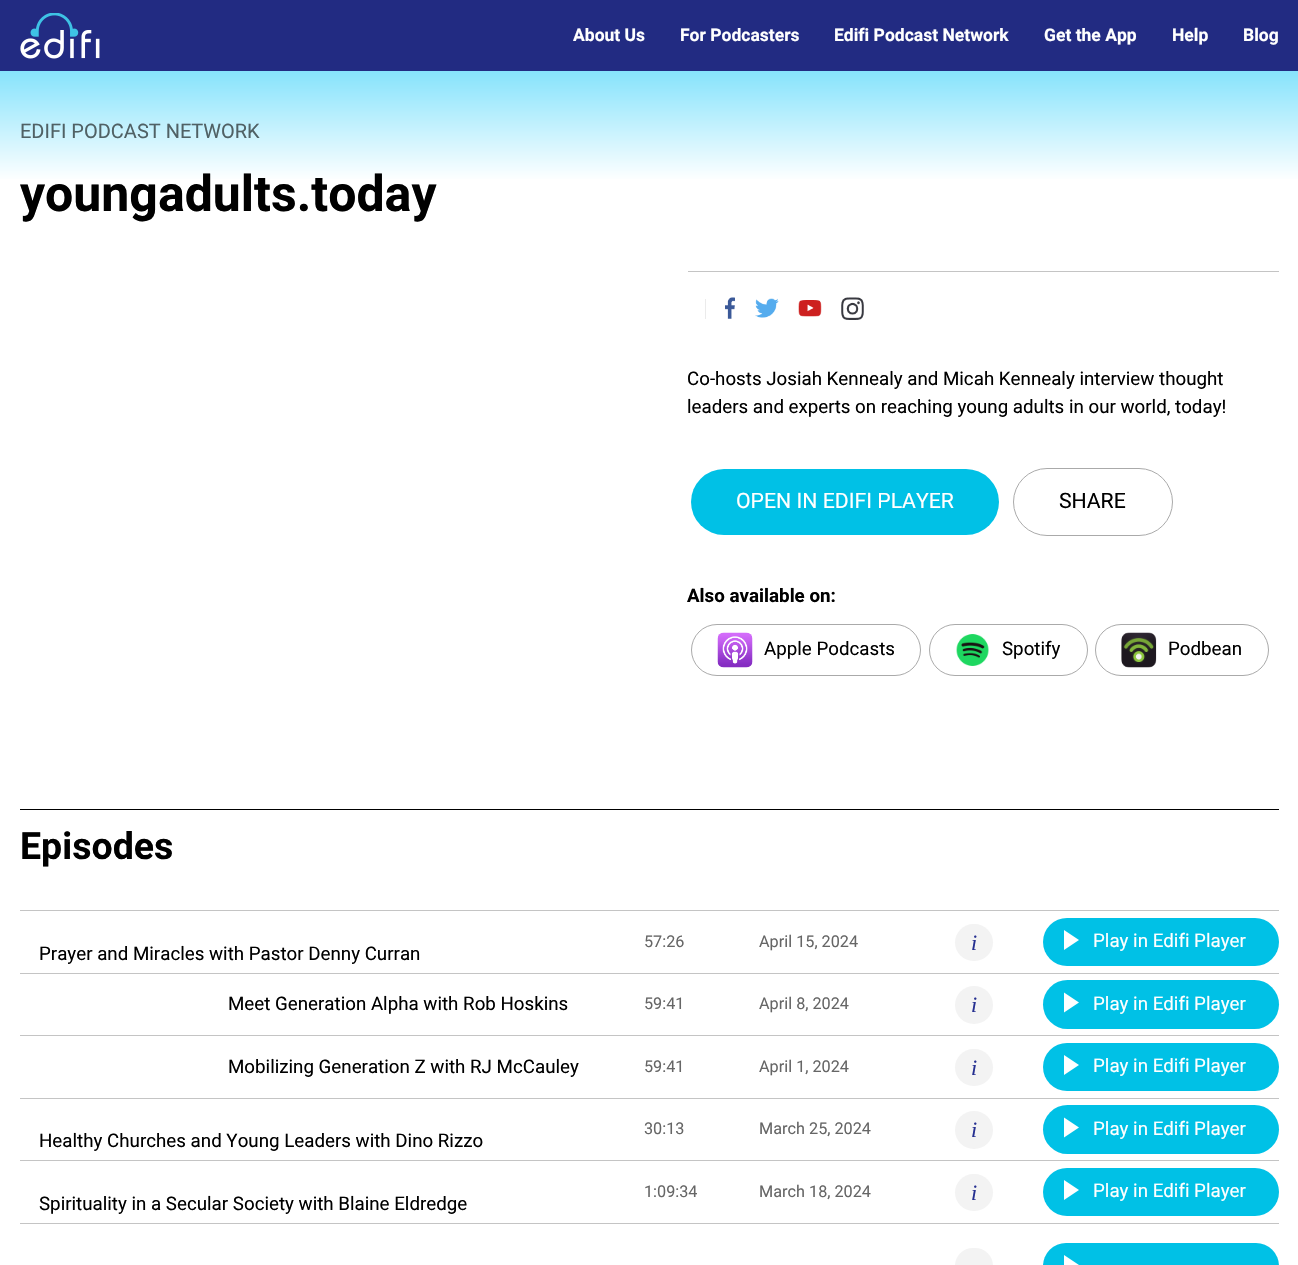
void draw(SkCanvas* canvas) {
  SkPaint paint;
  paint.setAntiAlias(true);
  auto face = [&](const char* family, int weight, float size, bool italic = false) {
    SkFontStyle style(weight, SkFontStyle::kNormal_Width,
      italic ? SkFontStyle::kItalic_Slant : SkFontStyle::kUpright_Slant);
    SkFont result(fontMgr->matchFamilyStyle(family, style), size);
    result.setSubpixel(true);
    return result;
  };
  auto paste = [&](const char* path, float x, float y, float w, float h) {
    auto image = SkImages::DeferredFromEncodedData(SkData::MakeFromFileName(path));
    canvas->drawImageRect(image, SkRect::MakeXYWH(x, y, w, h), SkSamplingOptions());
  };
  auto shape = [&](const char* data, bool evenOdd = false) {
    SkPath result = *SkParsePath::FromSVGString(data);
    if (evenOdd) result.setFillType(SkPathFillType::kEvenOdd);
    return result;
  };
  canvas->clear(0xffffffff);
  paint.setColor(0xff222b82);
  canvas->drawRect(SkRect::MakeXYWH(0, 0, 1298, 71), paint);
  paste("img/1.png", 20, 13, 80, 46);
  {
    const SkColor colors[] = {0xff86e3fc, 0xffffffff};
    const float stops[] = {0, 0.55f};
    const SkPoint ends[] = {{649, 71}, {649, 271}};
    paint.setShader(SkGradientShader::MakeLinear(ends, colors, stops, 2, SkTileMode::kClamp));
    paint.setAlpha(255);
  }
  canvas->drawRect(SkRect::MakeXYWH(0, 71, 1298, 108), paint);
  paint.setShader(nullptr);
  paint.setColor(0xffc4c4c4);
  canvas->drawRect(SkRect::MakeXYWH(688, 271, 591, 1), paint);
  paint.setColor(0xffebebeb);
  canvas->drawRect(SkRect::MakeXYWH(705, 299, 1, 20), paint);
  paste("img/2.png", 725, 297, 10, 22);
  paste("img/3.png", 755, 298, 24, 20);
  paste("img/4.png", 798, 300, 24, 17);
  paste("img/5.png", 841, 297, 23, 23);
  paint.setColor(0xff00c1e6);
  canvas->drawRoundRect(SkRect::MakeXYWH(691, 469, 308, 66), 33, 33, paint);
  paint.setStroke(true);
  paint.setStrokeWidth(1);
  paint.setColor(0xffaaaaaa);
  canvas->drawRoundRect(SkRect::MakeXYWH(1013.5f, 468.5f, 159, 67), 33.5f, 33.5f, paint);
  canvas->drawRoundRect(SkRect::MakeXYWH(691.5f, 624.5f, 229, 51), 25.5f, 25.5f, paint);
  paste("img/6.png", 717, 632, 36, 36);
  canvas->drawRoundRect(SkRect::MakeXYWH(929.5f, 624.5f, 158, 51), 25.5f, 25.5f, paint);
  paste("img/7.png", 956, 634, 33, 32);
  canvas->drawRoundRect(SkRect::MakeXYWH(1095.5f, 624.5f, 173, 51), 25.5f, 25.5f, paint);
  paste("img/8.png", 1121, 632, 36, 36);
  paint.setStroke(false);
  paint.setColor(0xff000000);
  canvas->drawRect(SkRect::MakeXYWH(20, 809, 1259, 1), paint);
  paint.setColor(0xffc4c4c4);
  canvas->drawRect(SkRect::MakeXYWH(20, 910, 1259, 1), paint);
  paint.setColor(0xfff3f3f3);
  canvas->drawRoundRect(SkRect::MakeXYWH(955, 924, 38, 37), 18.5f, 18.5f, paint);
  paint.setColor(0xff00c1e6);
  canvas->drawRoundRect(SkRect::MakeXYWH(1043, 918, 236, 48), 24, 24, paint);
  paint.setColor(0xffffffff);
  canvas->drawPath(shape("M1064 950V930L1079 940Z"), paint);
  paint.setColor(0xffc4c4c4);
  canvas->drawRect(SkRect::MakeXYWH(20, 973, 1259, 1), paint);
  paint.setColor(0xfff3f3f3);
  canvas->drawCircle(974, 1005, 19, paint);
  paint.setColor(0xff00c1e6);
  canvas->drawRoundRect(SkRect::MakeXYWH(1043, 980, 236, 49), 24.5f, 24.5f, paint);
  paint.setColor(0xffffffff);
  canvas->drawPath(shape("M1064 1012.5V992.5L1079 1002.5Z"), paint);
  paint.setColor(0xffc4c4c4);
  canvas->drawRect(SkRect::MakeXYWH(20, 1035, 1259, 1), paint);
  paint.setColor(0xfff3f3f3);
  canvas->drawRoundRect(SkRect::MakeXYWH(955, 1049, 38, 37), 18.5f, 18.5f, paint);
  paint.setColor(0xff00c1e6);
  canvas->drawRoundRect(SkRect::MakeXYWH(1043, 1043, 236, 48), 24, 24, paint);
  paint.setColor(0xffffffff);
  canvas->drawPath(shape("M1064 1075V1055L1079 1065Z"), paint);
  paint.setColor(0xffc4c4c4);
  canvas->drawRect(SkRect::MakeXYWH(20, 1098, 1259, 1), paint);
  paint.setColor(0xfff3f3f3);
  canvas->drawCircle(974, 1130, 19, paint);
  paint.setColor(0xff00c1e6);
  canvas->drawRoundRect(SkRect::MakeXYWH(1043, 1105, 236, 49), 24.5f, 24.5f, paint);
  paint.setColor(0xffffffff);
  canvas->drawPath(shape("M1064 1137.5V1117.5L1079 1127.5Z"), paint);
  paint.setColor(0xffc4c4c4);
  canvas->drawRect(SkRect::MakeXYWH(20, 1160, 1259, 1), paint);
  paint.setColor(0xfff3f3f3);
  canvas->drawRoundRect(SkRect::MakeXYWH(955, 1174, 38, 37), 18.5f, 18.5f, paint);
  paint.setColor(0xff00c1e6);
  canvas->drawRoundRect(SkRect::MakeXYWH(1043, 1168, 236, 48), 24, 24, paint);
  paint.setColor(0xffffffff);
  canvas->drawPath(shape("M1064 1200V1180L1079 1190Z"), paint);
  paint.setColor(0xffc4c4c4);
  canvas->drawRect(SkRect::MakeXYWH(20, 1223, 1259, 1), paint);
  paint.setColor(0xfff3f3f3);
  canvas->drawRoundRect(SkRect::MakeXYWH(955, 1248, 38, 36), 18.5f, 18.5f, paint);
  paint.setColor(0xff00c1e6);
  canvas->drawRoundRect(SkRect::MakeXYWH(1043, 1243, 236, 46), 24, 24, paint);
  paint.setColor(0xffffffff);
  canvas->drawPath(shape("M1064 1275V1255L1079 1265Z"), paint);
  auto f0 = face("Roboto", 700, 17.5f);
  {
    const struct { const char* s; float x, y; } items[] = {
      {"About Us", 573, 41},
      {"For Podcasters", 680, 41},
      {"Edifi Podcast Network", 834, 41},
      {"Get the App", 1044, 41},
      {"Help", 1172, 41},
      {"Blog", 1243, 41},
    };
    for (auto [s, x, y] : items) {
      canvas->drawString(s, x, y, f0, paint);
    }
  }
  auto f1 = face("Roboto", 400, 20);
  paint.setColor(0xff506165);
  canvas->drawString("EDIFI PODCAST NETWORK", 20, 138, f1, paint);
  auto f2 = face("Roboto", 700, 50);
  paint.setColor(0xff000000);
  canvas->drawString("youngadults.today", 20, 211, f2, paint);
  auto f3 = face("Roboto", 400, 18.75f);
  canvas->drawString("Co-hosts Josiah Kennealy and Micah Kennealy interview thought", 687, 385, f3, paint);
  canvas->drawString("leaders and experts on reaching young adults in our world, today!", 687, 413, f3, paint);
  auto f4 = face("Roboto", 400, 21.25f);
  paint.setColor(0xffffffff);
  canvas->drawString("OPEN IN EDIFI PLAYER", 736, 508, f4, paint);
  paint.setColor(0xff000000);
  canvas->drawString("SHARE", 1059, 508, f4, paint);
  auto f5 = face("Roboto", 700, 18.75f);
  canvas->drawString("Also available on:", 687, 602, f5, paint);
  {
    const struct { const char* s; float x, y; } items[] = {
      {"Apple Podcasts", 764, 655},
      {"Spotify", 1002, 655},
      {"Podbean", 1168, 655},
    };
    for (auto [s, x, y] : items) {
      canvas->drawString(s, x, y, f3, paint);
    }
  }
  auto f6 = face("Roboto", 700, 37.5f);
  canvas->drawString("Episodes", 20, 859, f6, paint);
  auto f7 = face("Roboto", 400, 16.25f);
  paint.setColor(0xff666666);
  canvas->drawString("57:26", 644, 947, f7, paint);
  canvas->drawString("April 15, 2024", 759, 947, f7, paint);
  auto f8 = face("Liberation Serif", 400, 22, true);
  paint.setColor(0xff263091);
  canvas->drawString("i", 971, 950, f8, paint);
  paint.setColor(0xffffffff);
  canvas->drawString("Play in Edifi Player", 1093, 947, f3, paint);
  paint.setColor(0xff000000);
  canvas->drawString("Prayer and Miracles with Pastor Denny Curran", 39, 960, f3, paint);
  canvas->drawString("Meet Generation Alpha with Rob Hoskins", 228, 1010, f3, paint);
  paint.setColor(0xff666666);
  canvas->drawString("59:41", 644, 1009, f7, paint);
  canvas->drawString("April 8, 2024", 759, 1009, f7, paint);
  paint.setColor(0xff263091);
  canvas->drawString("i", 971, 1012, f8, paint);
  paint.setColor(0xffffffff);
  canvas->drawString("Play in Edifi Player", 1093, 1010, f3, paint);
  paint.setColor(0xff000000);
  canvas->drawString("Mobilizing Generation Z with RJ McCauley", 228, 1073, f3, paint);
  paint.setColor(0xff666666);
  canvas->drawString("59:41", 644, 1072, f7, paint);
  canvas->drawString("April 1, 2024", 759, 1072, f7, paint);
  paint.setColor(0xff263091);
  canvas->drawString("i", 971, 1075, f8, paint);
  paint.setColor(0xffffffff);
  canvas->drawString("Play in Edifi Player", 1093, 1072, f3, paint);
  paint.setColor(0xff666666);
  canvas->drawString("30:13", 644, 1134, f7, paint);
  canvas->drawString("March 25, 2024", 759, 1134, f7, paint);
  paint.setColor(0xff263091);
  canvas->drawString("i", 971, 1137, f8, paint);
  paint.setColor(0xffffffff);
  canvas->drawString("Play in Edifi Player", 1093, 1135, f3, paint);
  paint.setColor(0xff000000);
  canvas->drawString("Healthy Churches and Young Leaders with Dino Rizzo", 39, 1147, f3, paint);
  paint.setColor(0xff666666);
  canvas->drawString("1:09:34", 644, 1197, f7, paint);
  canvas->drawString("March 18, 2024", 759, 1197, f7, paint);
  paint.setColor(0xff263091);
  canvas->drawString("i", 971, 1200, f8, paint);
  paint.setColor(0xffffffff);
  canvas->drawString("Play in Edifi Player", 1093, 1197, f3, paint);
  paint.setColor(0xff000000);
  canvas->drawString("Spirituality in a Secular Society with Blaine Eldredge", 39, 1210, f3, paint);
}
